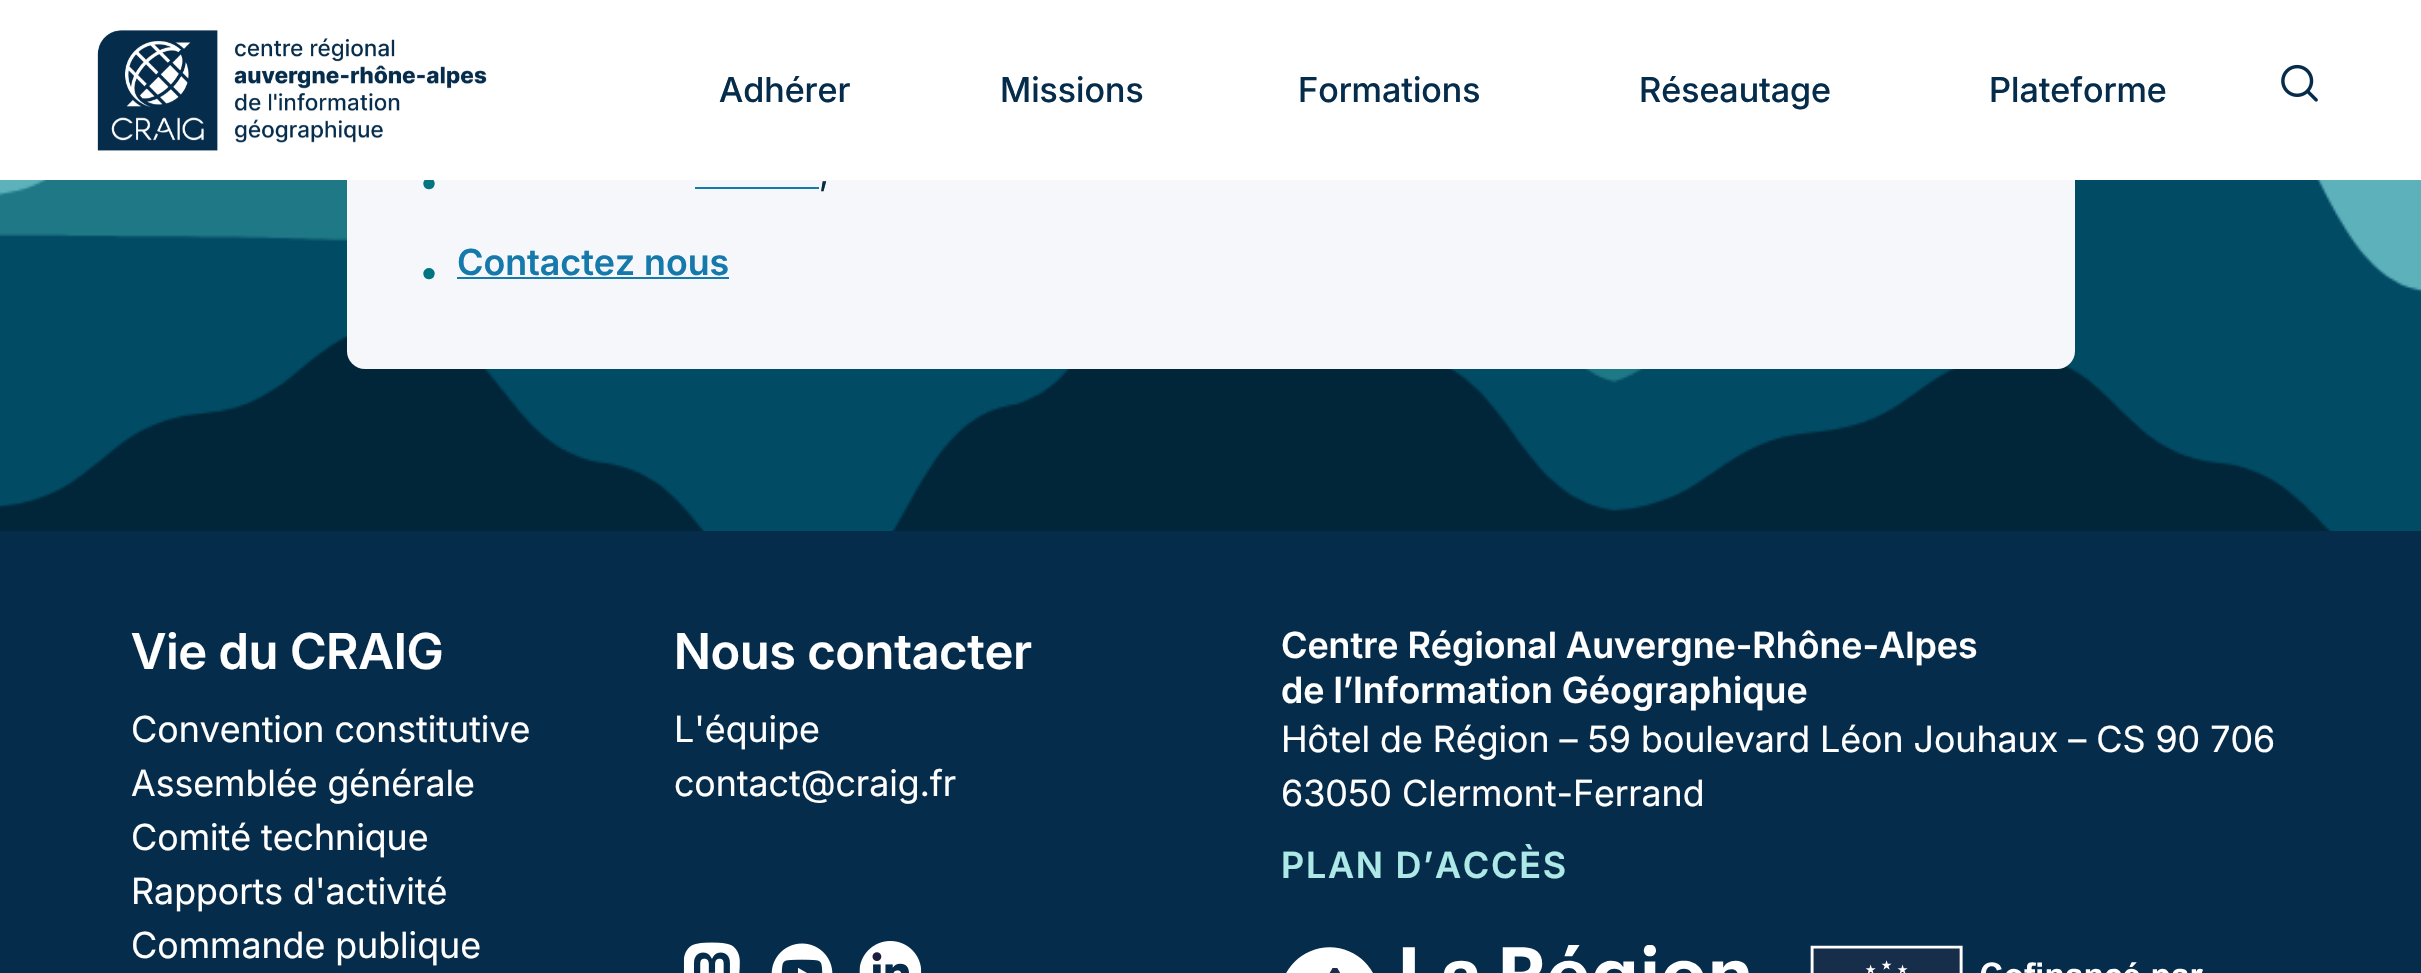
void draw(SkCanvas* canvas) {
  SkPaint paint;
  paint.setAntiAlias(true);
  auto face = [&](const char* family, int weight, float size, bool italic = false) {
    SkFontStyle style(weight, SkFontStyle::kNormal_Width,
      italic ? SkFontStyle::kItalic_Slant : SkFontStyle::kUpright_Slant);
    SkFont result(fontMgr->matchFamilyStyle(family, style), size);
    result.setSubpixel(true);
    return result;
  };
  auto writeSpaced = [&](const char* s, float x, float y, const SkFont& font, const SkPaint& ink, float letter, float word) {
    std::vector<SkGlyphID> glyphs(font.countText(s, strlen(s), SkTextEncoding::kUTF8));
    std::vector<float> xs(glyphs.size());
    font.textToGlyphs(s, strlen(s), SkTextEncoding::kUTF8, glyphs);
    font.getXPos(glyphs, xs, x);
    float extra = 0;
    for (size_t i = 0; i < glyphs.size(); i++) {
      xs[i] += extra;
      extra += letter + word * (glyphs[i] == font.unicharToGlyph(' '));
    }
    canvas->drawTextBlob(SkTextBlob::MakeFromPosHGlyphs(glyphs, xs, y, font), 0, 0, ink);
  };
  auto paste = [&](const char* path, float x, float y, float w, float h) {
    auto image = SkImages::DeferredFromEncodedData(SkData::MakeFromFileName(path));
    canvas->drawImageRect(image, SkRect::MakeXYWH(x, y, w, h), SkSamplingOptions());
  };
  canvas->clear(0xffffffff);
  paste("img/2.png", 2281, 64, 37, 38);
  paste("img/7.png", 0, 180, 2421, 351);
  paint.setColor(0xfff5f7fa);
  canvas->drawRoundRect(SkRect::MakeXYWH(347, -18, 1728, 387), 18, 18, paint);
  {
    const struct { float x, y, w, h; SkColor color; } items[] = {
      {695, 187, 124, 2, 0xff1679ab},
      {457, 277, 272, 2, 0xff1679ab},
      {0, 531, 2421, 442, 0xff062c4c},
    };
    for (auto [x, y, w, h, color] : items) {
      paint.setColor(color);
      canvas->drawRect(SkRect::MakeXYWH(x, y, w, h), paint);
    }
  }
  paste("img/3.png", 683, 942, 57, 31);
  paste("img/4.png", 771, 943, 62, 30);
  paste("img/5.png", 859, 941, 63, 32);
  paste("img/6.png", 1286, 945, 917, 28);
  auto f0 = face("Inter", 400, 36);
  paint.setColor(0xff007680);
  canvas->drawString("•", 419, 194, f0, paint);
  paint.setColor(0xffffffff);
  canvas->drawRect(SkRect::MakeXYWH(347, 0, 1728, 180), paint);
  auto f1 = face("Inter", 500, 34.5f);
  paint.setColor(0xff062c4c);
  {
    const struct { const char* s; float x, y; } items[] = {
      {"Plateforme", 1989, 102},
      {"Réseautage", 1639, 102},
      {"Formations", 1298, 102},
      {"Missions", 1000, 102},
      {"Adhérer", 719, 102},
    };
    for (auto [s, x, y] : items) {
      canvas->drawString(s, x, y, f1, paint);
    }
  }
  paste("img/1.png", 97, 30, 390, 121);
  paint.setColor(0xff0b2840);
  canvas->drawString(",", 819, 185, f0, paint);
  paint.setColor(0xff007680);
  canvas->drawString("•", 419, 284, f0, paint);
  auto f2 = face("Inter", 600, 36);
  paint.setColor(0xff1679ab);
  canvas->drawString("Contactez nous", 457, 275, f2, paint);
  auto f3 = face("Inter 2", 600, 49.5f);
  paint.setColor(0xffffffff);
  canvas->drawString("Vie du CRAIG", 131, 669, f3, paint);
  {
    const struct { const char* s; float x, y; } items[] = {
      {"Convention constitutive", 131, 742},
      {"Assemblée générale", 131, 796},
      {"Comité technique", 131, 850},
      {"Rapports d'activité", 131, 904},
      {"Commande publique", 131, 958},
    };
    for (auto [s, x, y] : items) {
      canvas->drawString(s, x, y, f0, paint);
    }
  }
  canvas->drawString("Nous contacter", 674, 669, f3, paint);
  canvas->drawString("L'équipe", 674, 742, f0, paint);
  canvas->drawString("contact@craig.fr", 674, 796, f0, paint);
  canvas->drawString("Centre Régional Auvergne-Rhône-Alpes", 1281, 658, f2, paint);
  canvas->drawString("de l’Information Géographique", 1281, 703, f2, paint);
  canvas->drawString("Hôtel de Région – 59 boulevard Léon Jouhaux – CS 90 706", 1281, 752, f0, paint);
  canvas->drawString("63050 Clermont-Ferrand", 1281, 806, f0, paint);
  paint.setColor(0xffade9e6);
  writeSpaced("PLAN D’ACCÈS", 1281, 878, f2, paint, 1.75f, 0);
}
